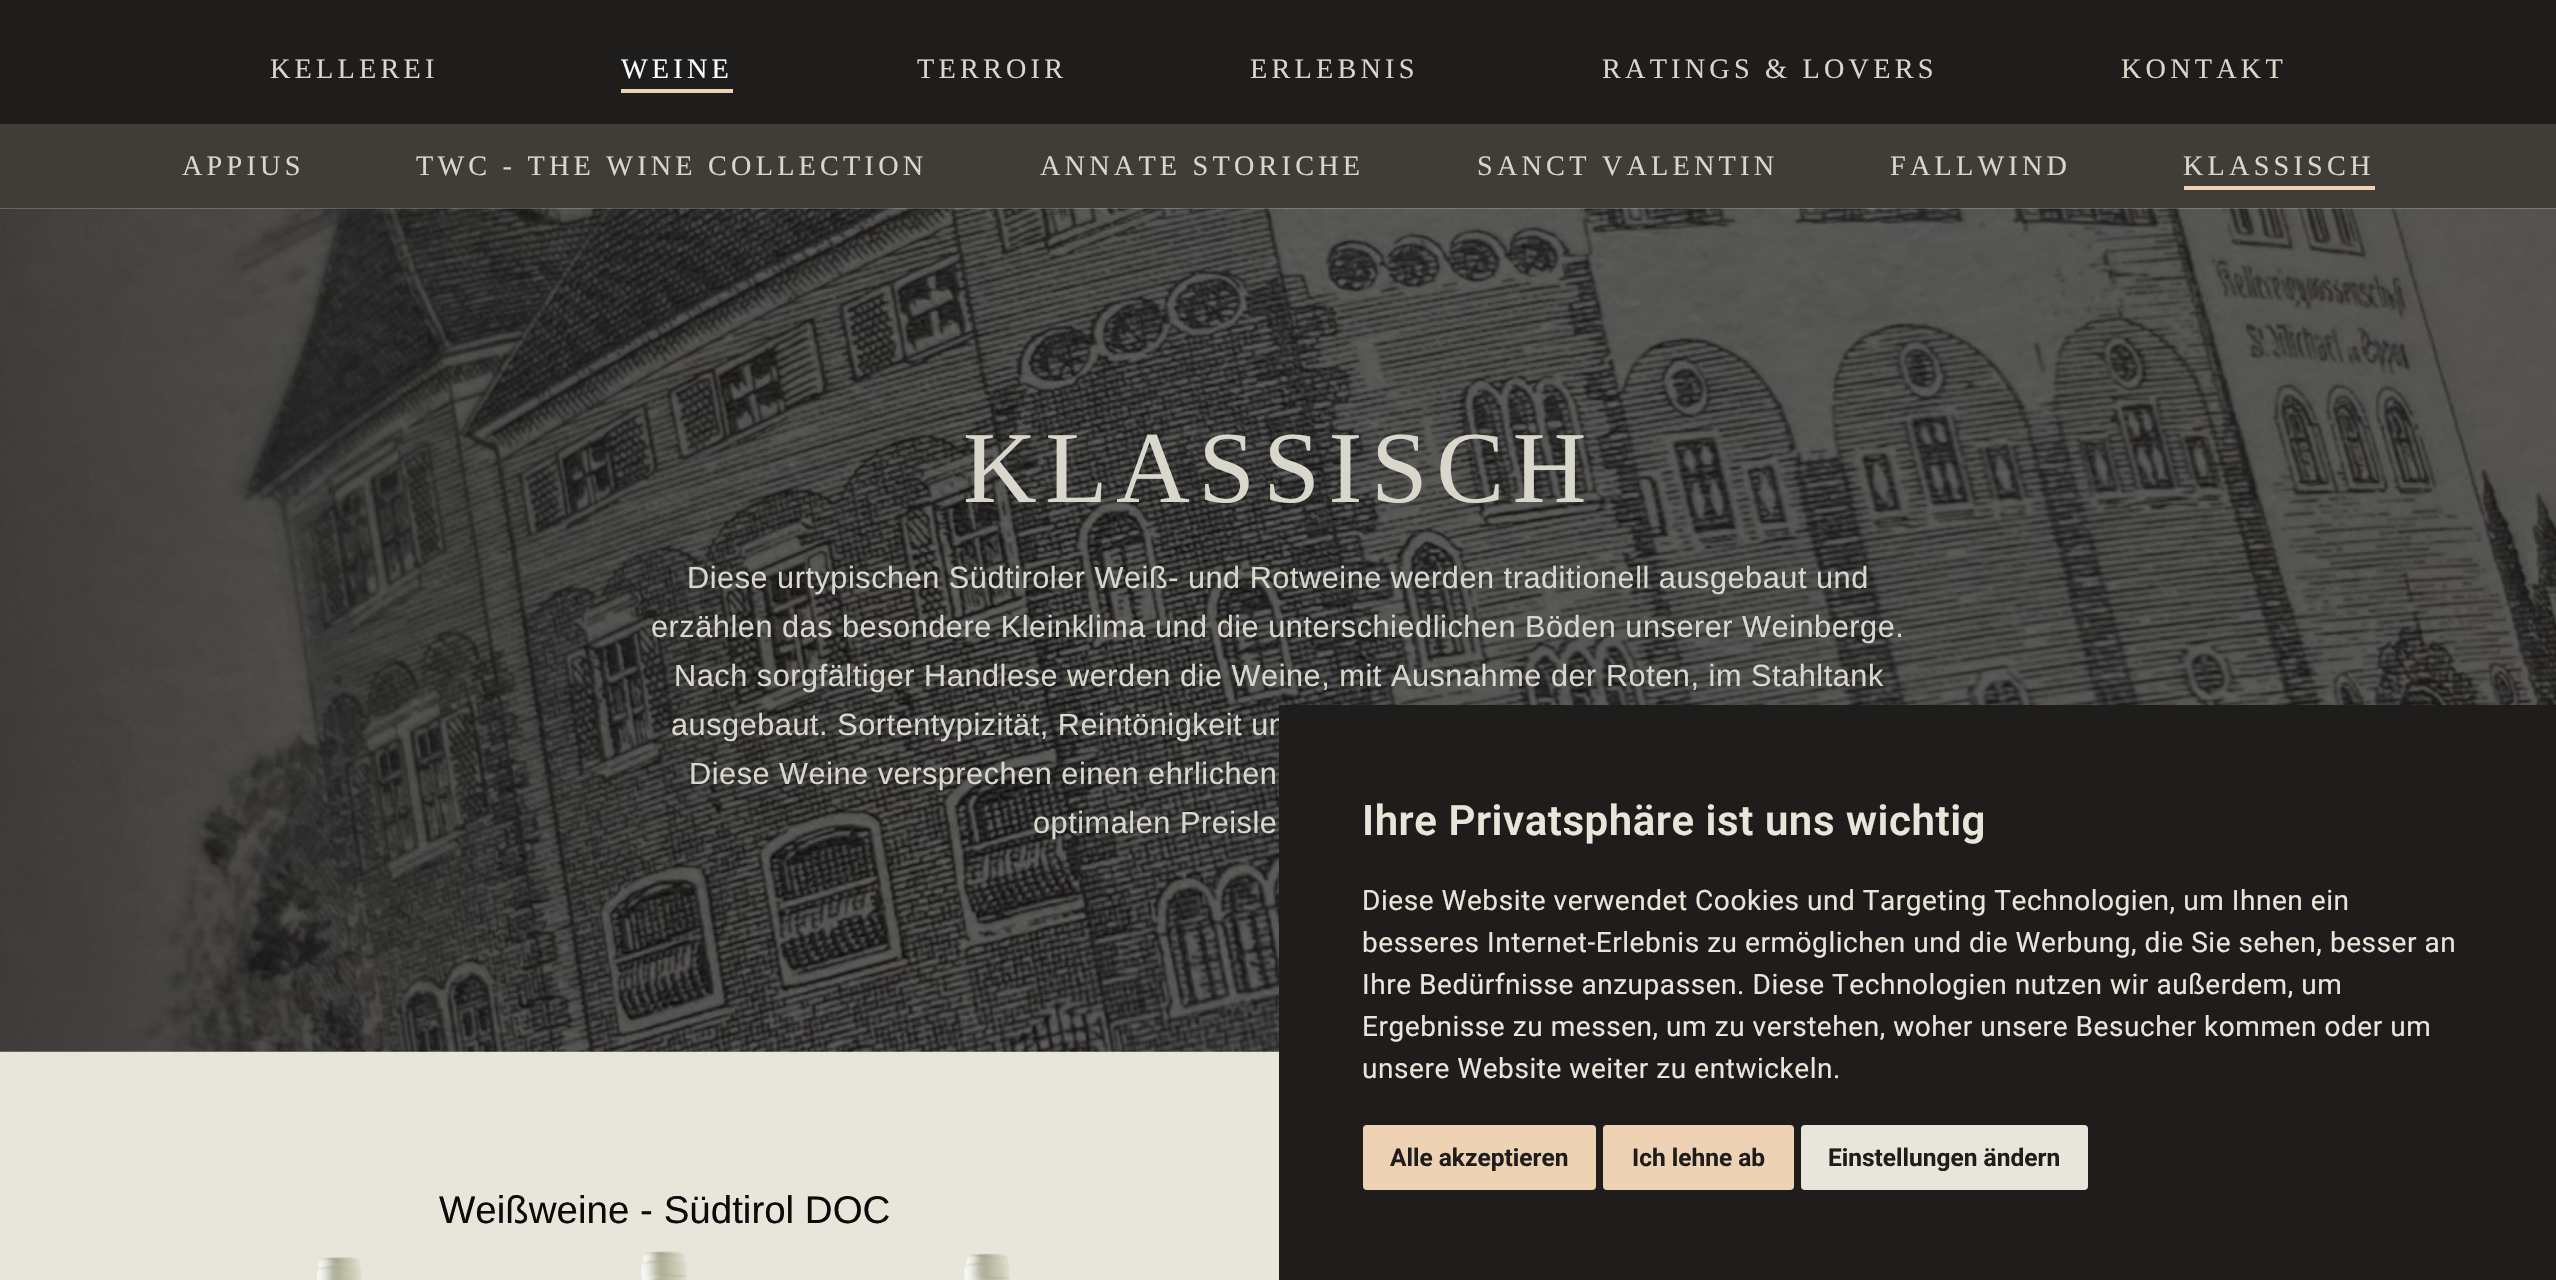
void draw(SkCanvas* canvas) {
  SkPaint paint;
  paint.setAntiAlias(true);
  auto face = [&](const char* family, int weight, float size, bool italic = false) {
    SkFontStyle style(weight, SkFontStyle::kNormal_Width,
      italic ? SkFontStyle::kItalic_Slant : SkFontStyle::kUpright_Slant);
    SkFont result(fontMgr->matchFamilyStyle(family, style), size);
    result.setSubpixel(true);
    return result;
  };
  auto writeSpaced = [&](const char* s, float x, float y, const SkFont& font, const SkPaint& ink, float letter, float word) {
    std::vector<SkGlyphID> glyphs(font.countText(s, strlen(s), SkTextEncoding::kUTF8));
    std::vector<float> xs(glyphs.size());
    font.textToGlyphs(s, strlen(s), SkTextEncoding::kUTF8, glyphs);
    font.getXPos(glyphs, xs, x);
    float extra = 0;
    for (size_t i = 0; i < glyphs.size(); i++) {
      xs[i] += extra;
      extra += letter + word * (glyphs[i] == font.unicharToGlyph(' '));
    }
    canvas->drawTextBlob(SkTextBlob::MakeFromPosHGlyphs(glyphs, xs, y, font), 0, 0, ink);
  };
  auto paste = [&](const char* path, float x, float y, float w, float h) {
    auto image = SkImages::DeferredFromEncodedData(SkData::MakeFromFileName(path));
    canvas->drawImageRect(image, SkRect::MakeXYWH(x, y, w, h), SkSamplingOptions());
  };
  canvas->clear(0xffe8e5da);
  {
    const struct { float x, y, w, h; SkColor color; } items[] = {
      {0, 0, 2556, 124, 0xff1f1d1b},
      {621, 89, 112, 4, 0xffedd3b4},
      {0, 124, 2556, 84, 0xff403d38},
      {2184, 186, 191, 4, 0xffedd3b4},
    };
    for (auto [x, y, w, h, color] : items) {
      paint.setColor(color);
      canvas->drawRect(SkRect::MakeXYWH(x, y, w, h), paint);
    }
  }
  paste("img/1.png", 0, 208, 2556, 844);
  paste("img/2.png", 316, 1257, 46, 23);
  paste("img/3.png", 640, 1251, 47, 29);
  paste("img/4.png", 964, 1253, 46, 27);
  auto f0 = face("Liberation Serif", 400, 28.25f);
  paint.setColor(0xffd9d6cc);
  writeSpaced("KELLEREI", 270, 78, f0, paint, 4.2f, 0);
  paint.setColor(0xfffefefe);
  writeSpaced("WEINE", 621, 78, f0, paint, 4.2f, 0);
  paint.setColor(0xffd9d6cc);
  {
    const struct { const char* s; float x, y; } items[] = {
      {"TERROIR", 917, 78},
      {"ERLEBNIS", 1250, 78},
      {"RATINGS & LOVERS", 1602, 78},
      {"KONTAKT", 2121, 78},
      {"APPIUS", 182, 175},
      {"TWC - THE WINE COLLECTION", 416, 175},
      {"ANNATE STORICHE", 1040, 175},
      {"SANCT VALENTIN", 1477, 175},
      {"FALLWIND", 1890, 175},
      {"KLASSISCH", 2183, 175},
    };
    for (auto [s, x, y] : items) {
      writeSpaced(s, x, y, f0, paint, 4.2f, 0);
    }
  }
  auto f1 = face("Liberation Serif", 400, 102);
  writeSpaced("KLASSISCH", 963, 502, f1, paint, 8.5f, 0);
  auto f2 = face("Liberation Sans", 400, 30.65f);
  writeSpaced("Diese urtypischen Südtiroler Weiß- und Rotweine werden traditionell ausgebaut und", 687, 588, f2, paint, 0.55f, -0.1f);
  writeSpaced("erzählen das besondere Kleinklima und die unterschiedlichen Böden unserer Weinberge.", 651, 637, f2, paint, 0.55f, -0.1f);
  writeSpaced("Nach sorgfältiger Handlese werden die Weine, mit Ausnahme der Roten, im Stahltank", 674, 686, f2, paint, 0.55f, 0);
  writeSpaced("ausgebaut. Sortentypizität, Reintönigkeit un", 671, 735, f2, paint, 0.55f, 0);
  writeSpaced("Diese Weine versprechen einen ehrlichen", 689, 784, f2, paint, 0.55f, -0.1f);
  writeSpaced("optimalen Preisle", 1033, 833, f2, paint, 0.55f, 0);
  paint.setColor(0xff1f1d1b);
  canvas->drawRect(SkRect::MakeXYWH(1279, 705, 1277, 575), paint);
  auto f3 = face("Roboto", 600, 42);
  paint.setColor(0xffe8e5da);
  writeSpaced("Ihre Privatsphäre ist uns wichtig", 1362, 835, f3, paint, 0.55f, 0);
  auto f4 = face("Roboto", 400, 28);
  {
    const struct { const char* s; float x, y; } items[] = {
      {"Diese Website verwendet Cookies und Targeting Technologien, um Ihnen ein", 1362, 910},
      {"besseres Internet-Erlebnis zu ermöglichen und die Werbung, die Sie sehen, besser an", 1362, 952},
      {"Ihre Bedürfnisse anzupassen. Diese Technologien nutzen wir außerdem, um", 1362, 994},
      {"Ergebnisse zu messen, um zu verstehen, woher unsere Besucher kommen oder um", 1362, 1036},
      {"unsere Website weiter zu entwickeln.", 1362, 1078},
    };
    for (auto [s, x, y] : items) {
      writeSpaced(s, x, y, f4, paint, 0.55f, 0);
    }
  }
  paint.setColor(0xffedd3b4);
  canvas->drawRoundRect(SkRect::MakeXYWH(1363, 1125, 233, 65), 4, 4, paint);
  auto f5 = face("Roboto", 700, 24.5f);
  paint.setColor(0xff1f1d1b);
  canvas->drawString("Alle akzeptieren", 1390, 1166, f5, paint);
  paint.setColor(0xffedd3b4);
  canvas->drawRoundRect(SkRect::MakeXYWH(1603, 1125, 191, 65), 4, 4, paint);
  paint.setColor(0xff1f1d1b);
  canvas->drawString("Ich lehne ab", 1632, 1166, f5, paint);
  paint.setColor(0xffe8e5da);
  canvas->drawRoundRect(SkRect::MakeXYWH(1801, 1125, 287, 65), 4, 4, paint);
  paint.setColor(0xff1f1d1b);
  canvas->drawString("Einstellungen ändern", 1828, 1166, f5, paint);
  auto f6 = face("Liberation Sans", 400, 38.5f);
  paint.setColor(0xff0a0a0a);
  canvas->drawString("Weißweine - Südtirol DOC", 439, 1223, f6, paint);
}
